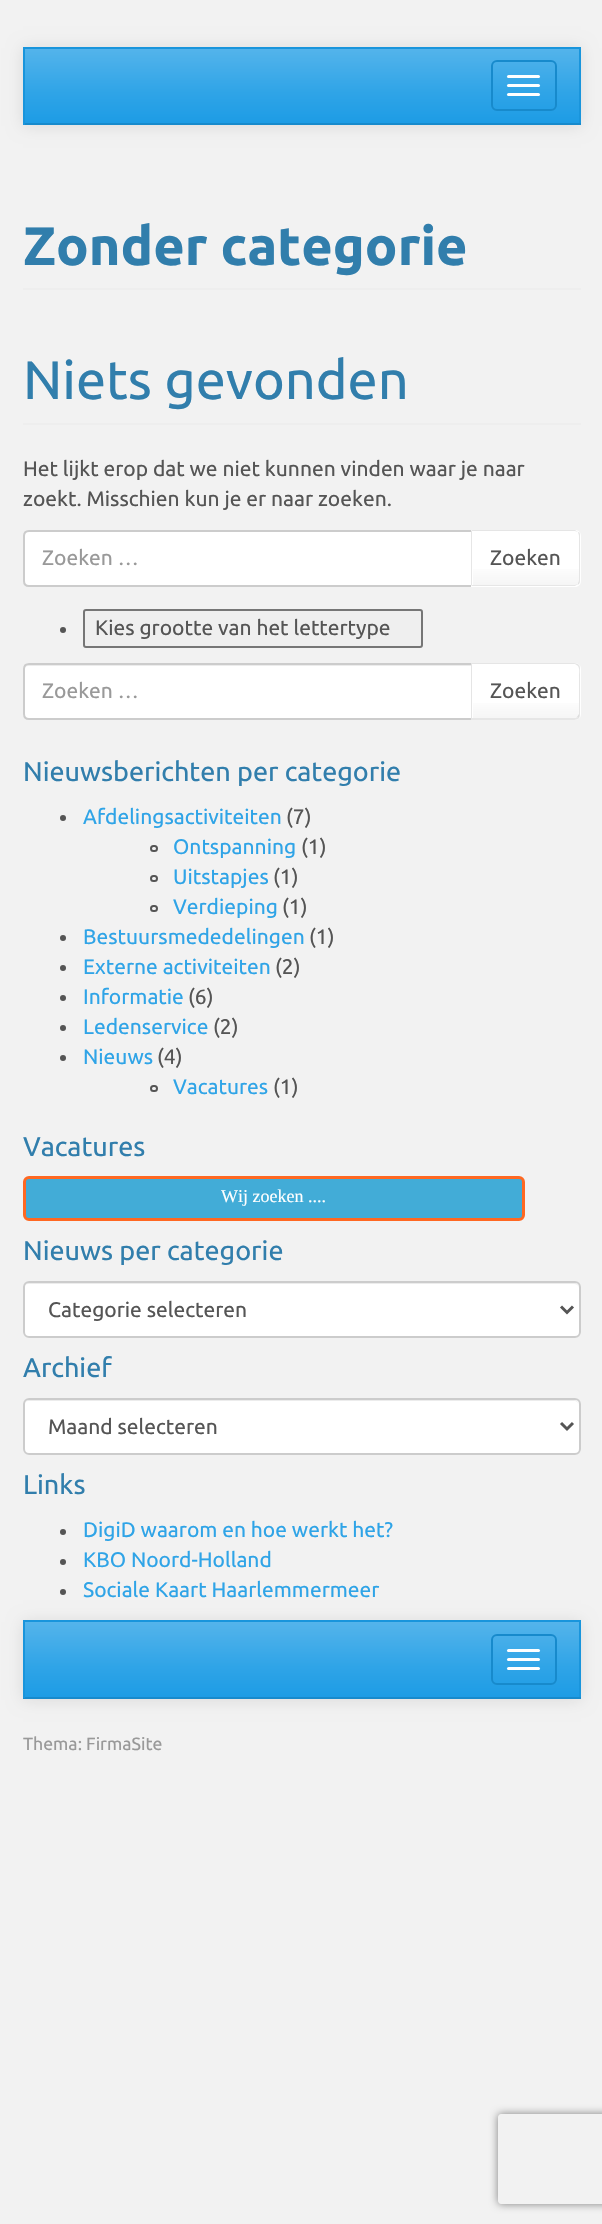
void draw(SkCanvas* canvas) {
  SkPaint paint;
  paint.setAntiAlias(true);
  auto face = [&](const char* family, int weight, float size, bool italic = false) {
    SkFontStyle style(weight, SkFontStyle::kNormal_Width,
      italic ? SkFontStyle::kItalic_Slant : SkFontStyle::kUpright_Slant);
    SkFont result(fontMgr->matchFamilyStyle(family, style), size);
    result.setSubpixel(true);
    return result;
  };
  auto shape = [&](const char* data, bool evenOdd = false) {
    SkPath result = *SkParsePath::FromSVGString(data);
    if (evenOdd) result.setFillType(SkPathFillType::kEvenOdd);
    return result;
  };
  canvas->clear(0xfff2f2f2);
  paint.setColor(0x1a000000);
  paint.setMaskFilter(SkMaskFilter::MakeBlur(kNormal_SkBlurStyle, 7.5f));
  canvas->drawRect(SkRect::MakeXYWH(23, 48, 558, 78), paint);
  paint.setMaskFilter(nullptr);
  {
    const SkColor colors[] = {0xff54b4eb, 0xff2fa4e7, 0xff1d9ce5};
    const float stops[] = {0, 0.6f, 1};
    const SkPoint ends[] = {{302, 48}, {302, 123}};
    paint.setShader(SkGradientShader::MakeLinear(ends, colors, stops, 3, SkTileMode::kClamp));
    paint.setAlpha(255);
  }
  canvas->drawRect(SkRect::MakeXYWH(25, 49, 554, 74), paint);
  paint.setShader(nullptr);
  {
    const struct { float x, y, w, h; SkColor color; } items[] = {
      {23, 47, 558, 2, 0xff1995dc},
      {579, 47, 2, 78, 0xff1995dc},
      {23, 123, 558, 2, 0xff178acc},
      {23, 47, 2, 78, 0xff1995dc},
    };
    for (auto [x, y, w, h, color] : items) {
      paint.setColor(color);
      canvas->drawRect(SkRect::MakeXYWH(x, y, w, h), paint);
    }
  }
  paint.setStroke(true);
  paint.setStrokeWidth(2);
  paint.setColor(0xff178acc);
  canvas->drawRoundRect(SkRect::MakeXYWH(492, 61, 64, 49), 5, 5, paint);
  paint.setStroke(false);
  paint.setColor(0xffffffff);
  canvas->drawRoundRect(SkRect::MakeXYWH(507, 75, 33, 3), 1.5f, 1.5f, paint);
  canvas->drawRoundRect(SkRect::MakeXYWH(507, 84, 33, 3), 1.5f, 1.5f, paint);
  canvas->drawRoundRect(SkRect::MakeXYWH(507, 93, 33, 3), 1.5f, 1.5f, paint);
  paint.setColor(0xffeeeeee);
  canvas->drawRect(SkRect::MakeXYWH(23, 288, 558, 2), paint);
  canvas->drawRect(SkRect::MakeXYWH(23, 423, 558, 2), paint);
  paint.setColor(0xffffffff);
  canvas->drawPath(shape("M29 531H472V586H29C26 586 24 584 24 581V536C24 533 26 531 29 531Z"), paint);
  paint.setStroke(true);
  paint.setColor(0xffcccccc);
  canvas->drawPath(shape("M29 531H472V586H29C26 586 24 584 24 581V536C24 533 26 531 29 531Z"), paint);
  paint.setStroke(false);
  paint.setColor(0xffffffff);
  canvas->drawPath(shape("M471 530H575C578.5 530 581 532.5 581 536V581C581 584.5 578.5 587 575 587H471Z"), paint);
  {
    const SkColor colors[] = {0xffffffff, 0xffffffff, 0xfff5f5f5};
    const float stops[] = {0, 0.6f, 1};
    const SkPoint ends[] = {{526, 531}, {526, 585}};
    paint.setShader(SkGradientShader::MakeLinear(ends, colors, stops, 3, SkTileMode::kClamp));
    paint.setAlpha(255);
  }
  canvas->drawRect(SkRect::MakeXYWH(473, 569, 106, 16), paint);
  paint.setShader(nullptr);
  paint.setColor(0xffe5e5e5);
  canvas->drawPath(shape("M578 532L575 530H472V531H575Z"), paint);
  paint.setColor(0x1a000000);
  canvas->drawPath(shape("M578 532C580 532 580 534 580 536V580C580 582 580 584 578 584C578 583 579 582 579 580V536C579 534 578 533 578 532Z"), paint);
  paint.setColor(0xffe6e6e6);
  canvas->drawPath(shape("M578 584L575 586H472V585H575Z"), paint);
  canvas->drawPath(shape("M472 531V585L471 586V530Z"), paint);
  paint.setColor(0xff555555);
  canvas->drawCircle(63, 630, 3, paint);
  paint.setColor(0xffefefef);
  canvas->drawRoundRect(SkRect::MakeXYWH(84, 610, 338, 37), 2, 2, paint);
  paint.setStroke(true);
  paint.setColor(0xff767676);
  canvas->drawRoundRect(SkRect::MakeXYWH(84, 610, 338, 37), 2, 2, paint);
  paint.setStroke(false);
  paint.setColor(0xffffffff);
  canvas->drawPath(shape("M29 663H473V720H29C25.5 720 23 717.5 23 714V669C23 665.5 25.5 663 29 663Z"), paint);
  paint.setColor(0xffececec);
  canvas->drawPath(shape("M28 666H471V665H29C26 665 24 667 24 670C24 668 26 666 28 666Z"), paint);
  paint.setStroke(true);
  paint.setColor(0xffcccccc);
  canvas->drawPath(shape("M29 664H472V719H29C26 719 24 717 24 714V669C24 666 26 664 29 664Z"), paint);
  paint.setStroke(false);
  paint.setColor(0xffffffff);
  canvas->drawPath(shape("M471 663H575C578.5 663 581 665.5 581 669V714C581 717.5 578.5 720 575 720H471Z"), paint);
  {
    const SkColor colors[] = {0xffffffff, 0xffffffff, 0xfff5f5f5};
    const float stops[] = {0, 0.6f, 1};
    const SkPoint ends[] = {{526, 665}, {526, 719}};
    paint.setShader(SkGradientShader::MakeLinear(ends, colors, stops, 3, SkTileMode::kClamp));
    paint.setAlpha(255);
  }
  canvas->drawRect(SkRect::MakeXYWH(473, 703, 106, 16), paint);
  paint.setShader(nullptr);
  paint.setColor(0xffe5e5e5);
  canvas->drawPath(shape("M471 663L472 664H575L578 666L579 665C578 664 576 663 574 663Z"), paint);
  paint.setColor(0x1a000000);
  canvas->drawPath(shape("M579 665C580 666 580 668 580 669V714C580 715 580 717 579 718L577 717L579 714V676C579 673 580 669 578 666Z"), paint);
  paint.setColor(0xffe6e6e6);
  canvas->drawPath(shape("M574 720C576 720 578 719 579 718L577 717C577 718 575 718 574 718H473L471 720Z"), paint);
  paint.setColor(0x1a000000);
  canvas->drawPath(shape("M471 663V720L473 718H472V664Z"), paint);
  paint.setColor(0xff555555);
  canvas->drawCircle(63, 818, 3, paint);
  paint.setStroke(true);
  canvas->drawRoundRect(SkRect::MakeXYWH(151, 846, 6, 5), 2.5f, 2.5f, paint);
  canvas->drawRoundRect(SkRect::MakeXYWH(151, 876, 6, 5), 2.5f, 2.5f, paint);
  canvas->drawRoundRect(SkRect::MakeXYWH(151, 906, 6, 5), 2.5f, 2.5f, paint);
  paint.setStroke(false);
  canvas->drawCircle(63, 938, 3, paint);
  canvas->drawCircle(63, 968, 3, paint);
  canvas->drawCircle(63, 998, 3, paint);
  canvas->drawCircle(63, 1028, 3, paint);
  canvas->drawCircle(63, 1058, 3, paint);
  paint.setStroke(true);
  canvas->drawRoundRect(SkRect::MakeXYWH(151, 1086, 6, 5), 2.5f, 2.5f, paint);
  paint.setStroke(false);
  paint.setColor(0xff42acd7);
  canvas->drawRoundRect(SkRect::MakeXYWH(24.5f, 1177.5f, 499, 42), 4.5f, 4.5f, paint);
  paint.setStroke(true);
  paint.setStrokeWidth(3);
  paint.setColor(0xffff6822);
  canvas->drawRoundRect(SkRect::MakeXYWH(24.5f, 1177.5f, 499, 42), 4.5f, 4.5f, paint);
  paint.setStroke(false);
  paint.setColor(0xffffffff);
  canvas->drawRoundRect(SkRect::MakeXYWH(23, 1281, 558, 57), 6, 6, paint);
  paint.setColor(0xffececec);
  canvas->drawPath(shape("M28 1284H574C577 1284 579 1286 579 1288C579 1285 577 1283 574 1283H29C26 1283 24 1285 24 1288C24 1286 26 1284 28 1284Z"), paint);
  paint.setStroke(true);
  paint.setStrokeWidth(2);
  paint.setColor(0xffcccccc);
  canvas->drawRoundRect(SkRect::MakeXYWH(24, 1282, 556, 55), 5, 5, paint);
  paint.setStrokeWidth(3);
  paint.setColor(0xff555555);
  canvas->drawPath(shape("M561 1306.5L567 1312.5L573 1306.5"), paint);
  paint.setStroke(false);
  paint.setColor(0xffffffff);
  canvas->drawRoundRect(SkRect::MakeXYWH(23, 1398, 558, 57), 6, 6, paint);
  paint.setColor(0xffececec);
  canvas->drawPath(shape("M28 1401H574C577 1401 579 1403 579 1406C579 1403 577 1400 574 1400H29C26 1400 24 1403 24 1406C24 1403 26 1401 28 1401Z"), paint);
  paint.setStroke(true);
  paint.setStrokeWidth(2);
  paint.setColor(0xffcccccc);
  canvas->drawRoundRect(SkRect::MakeXYWH(24, 1399, 556, 55), 5, 5, paint);
  paint.setStrokeWidth(3);
  paint.setColor(0xff555555);
  canvas->drawPath(shape("M561 1423L567 1429L573 1423"), paint);
  paint.setStroke(false);
  canvas->drawCircle(63, 1532, 3, paint);
  canvas->drawCircle(63, 1562, 3, paint);
  canvas->drawCircle(63, 1592, 3, paint);
  paint.setColor(0x1a000000);
  paint.setMaskFilter(SkMaskFilter::MakeBlur(kNormal_SkBlurStyle, 7.5f));
  canvas->drawRect(SkRect::MakeXYWH(23, 1622, 558, 78), paint);
  paint.setMaskFilter(nullptr);
  {
    const SkColor colors[] = {0xff54b4eb, 0xff2fa4e7, 0xff1d9ce5};
    const float stops[] = {0, 0.6f, 1};
    const SkPoint ends[] = {{302, 1622}, {302, 1697}};
    paint.setShader(SkGradientShader::MakeLinear(ends, colors, stops, 3, SkTileMode::kClamp));
    paint.setAlpha(255);
  }
  canvas->drawRect(SkRect::MakeXYWH(25, 1622, 554, 75), paint);
  paint.setShader(nullptr);
  {
    const struct { float x, y, w, h; SkColor color; } items[] = {
      {23, 1620, 558, 2, 0xff1995dc},
      {579, 1620, 2, 78, 0xff1995dc},
      {23, 1697, 558, 2, 0xff178acc},
      {23, 1620, 2, 78, 0xff1995dc},
    };
    for (auto [x, y, w, h, color] : items) {
      paint.setColor(color);
      canvas->drawRect(SkRect::MakeXYWH(x, y, w, h), paint);
    }
  }
  paint.setStroke(true);
  paint.setStrokeWidth(2);
  paint.setColor(0xff178acc);
  canvas->drawRoundRect(SkRect::MakeXYWH(492, 1635, 64, 49), 5, 5, paint);
  paint.setStroke(false);
  paint.setColor(0xffffffff);
  canvas->drawRoundRect(SkRect::MakeXYWH(507, 1649, 33, 3), 1.5f, 1.5f, paint);
  canvas->drawRoundRect(SkRect::MakeXYWH(507, 1658, 33, 3), 1.5f, 1.5f, paint);
  canvas->drawRoundRect(SkRect::MakeXYWH(507, 1667, 33, 3), 1.5f, 1.5f, paint);
  canvas->save();
  canvas->clipPath(shape("M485 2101H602V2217H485ZM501 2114H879C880.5 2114 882 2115.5 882 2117V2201C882 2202.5 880.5 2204 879 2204H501C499.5 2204 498 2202.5 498 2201V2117C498 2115.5 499.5 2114 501 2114Z", true), true);
  paint.setColor(0xff808080);
  paint.setMaskFilter(SkMaskFilter::MakeBlur(kNormal_SkBlurStyle, 4));
  canvas->drawRoundRect(SkRect::MakeXYWH(498, 2114, 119, 90), 3, 3, paint);
  paint.setMaskFilter(nullptr);
  canvas->restore();
  auto f0 = face("Ubuntu", 700, 54);
  paint.setColor(0xff317eac);
  canvas->drawString("Zonder categorie", 23, 265, f0, paint);
  auto f1 = face("Ubuntu", 400, 54);
  canvas->drawString("Niets gevonden", 23, 399, f1, paint);
  auto f2 = face("Ubuntu", 400, 21);
  paint.setColor(0xff555555);
  canvas->drawString("Het lijkt erop dat we niet kunnen vinden waar je naar", 23, 476, f2, paint);
  canvas->drawString("zoekt. Misschien kun je er naar zoeken.", 23, 506, f2, paint);
  paint.setColor(0xff999999);
  canvas->drawString("Zoeken …", 42, 565, f2, paint);
  paint.setColor(0xff555555);
  canvas->drawString("Zoeken", 490, 565, f2, paint);
  canvas->drawString("Kies grootte van het lettertype", 95, 635, f2, paint);
  paint.setColor(0xff999999);
  canvas->drawString("Zoeken …", 42, 698, f2, paint);
  paint.setColor(0xff555555);
  canvas->drawString("Zoeken", 490, 698, f2, paint);
  auto f3 = face("Ubuntu", 400, 27);
  paint.setColor(0xff317eac);
  canvas->drawString("Nieuwsberichten per categorie", 23, 781, f3, paint);
  paint.setColor(0xff2fa4e7);
  canvas->drawString("Afdelingsactiviteiten", 83, 824, f2, paint);
  paint.setColor(0xff555555);
  canvas->drawString("(7)", 286, 824, f2, paint);
  paint.setColor(0xff2fa4e7);
  canvas->drawString("Ontspanning", 173, 854, f2, paint);
  paint.setColor(0xff555555);
  canvas->drawString("(1)", 301, 854, f2, paint);
  paint.setColor(0xff2fa4e7);
  canvas->drawString("Uitstapjes", 173, 884, f2, paint);
  paint.setColor(0xff555555);
  canvas->drawString("(1)", 273, 884, f2, paint);
  paint.setColor(0xff2fa4e7);
  canvas->drawString("Verdieping", 173, 914, f2, paint);
  paint.setColor(0xff555555);
  canvas->drawString("(1)", 282, 914, f2, paint);
  paint.setColor(0xff2fa4e7);
  canvas->drawString("Bestuursmededelingen", 83, 944, f2, paint);
  paint.setColor(0xff555555);
  canvas->drawString("(1)", 309, 944, f2, paint);
  paint.setColor(0xff2fa4e7);
  canvas->drawString("Externe activiteiten", 83, 974, f2, paint);
  paint.setColor(0xff555555);
  canvas->drawString("(2)", 275, 974, f2, paint);
  paint.setColor(0xff2fa4e7);
  canvas->drawString("Informatie", 83, 1004, f2, paint);
  paint.setColor(0xff555555);
  canvas->drawString("(6)", 188, 1004, f2, paint);
  paint.setColor(0xff2fa4e7);
  canvas->drawString("Ledenservice", 83, 1034, f2, paint);
  paint.setColor(0xff555555);
  canvas->drawString("(2)", 213, 1034, f2, paint);
  paint.setColor(0xff2fa4e7);
  canvas->drawString("Nieuws", 83, 1064, f2, paint);
  paint.setColor(0xff555555);
  canvas->drawString("(4)", 157, 1064, f2, paint);
  paint.setColor(0xff2fa4e7);
  canvas->drawString("Vacatures", 173, 1094, f2, paint);
  paint.setColor(0xff555555);
  canvas->drawString("(1)", 273, 1094, f2, paint);
  paint.setColor(0xff317eac);
  canvas->drawString("Vacatures", 23, 1156, f3, paint);
  auto f4 = face("Liberation Serif", 400, 18);
  paint.setColor(0xffffffff);
  canvas->drawString("Wij zoeken ....", 221, 1202, f4, paint);
  paint.setColor(0xff317eac);
  canvas->drawString("Nieuws per categorie", 23, 1260, f3, paint);
  paint.setColor(0xff555555);
  canvas->drawString("Categorie selecteren", 48, 1317, f2, paint);
  paint.setColor(0xff317eac);
  canvas->drawString("Archief", 23, 1377, f3, paint);
  paint.setColor(0xff555555);
  canvas->drawString("Maand selecteren", 48, 1434, f2, paint);
  paint.setColor(0xff317eac);
  canvas->drawString("Links", 23, 1494, f3, paint);
  paint.setColor(0xff2fa4e7);
  {
    const struct { const char* s; float x, y; } items[] = {
      {"DigiD waarom en hoe werkt het?", 83, 1537},
      {"KBO Noord-Holland", 83, 1567},
      {"Sociale Kaart Haarlemmermeer", 83, 1597},
    };
    for (auto [s, x, y] : items) {
      canvas->drawString(s, x, y, f2, paint);
    }
  }
  auto f5 = face("Ubuntu", 400, 17.75f);
  paint.setColor(0xff999999);
  canvas->drawString("Thema: FirmaSite", 23, 1750, f5, paint);
}
